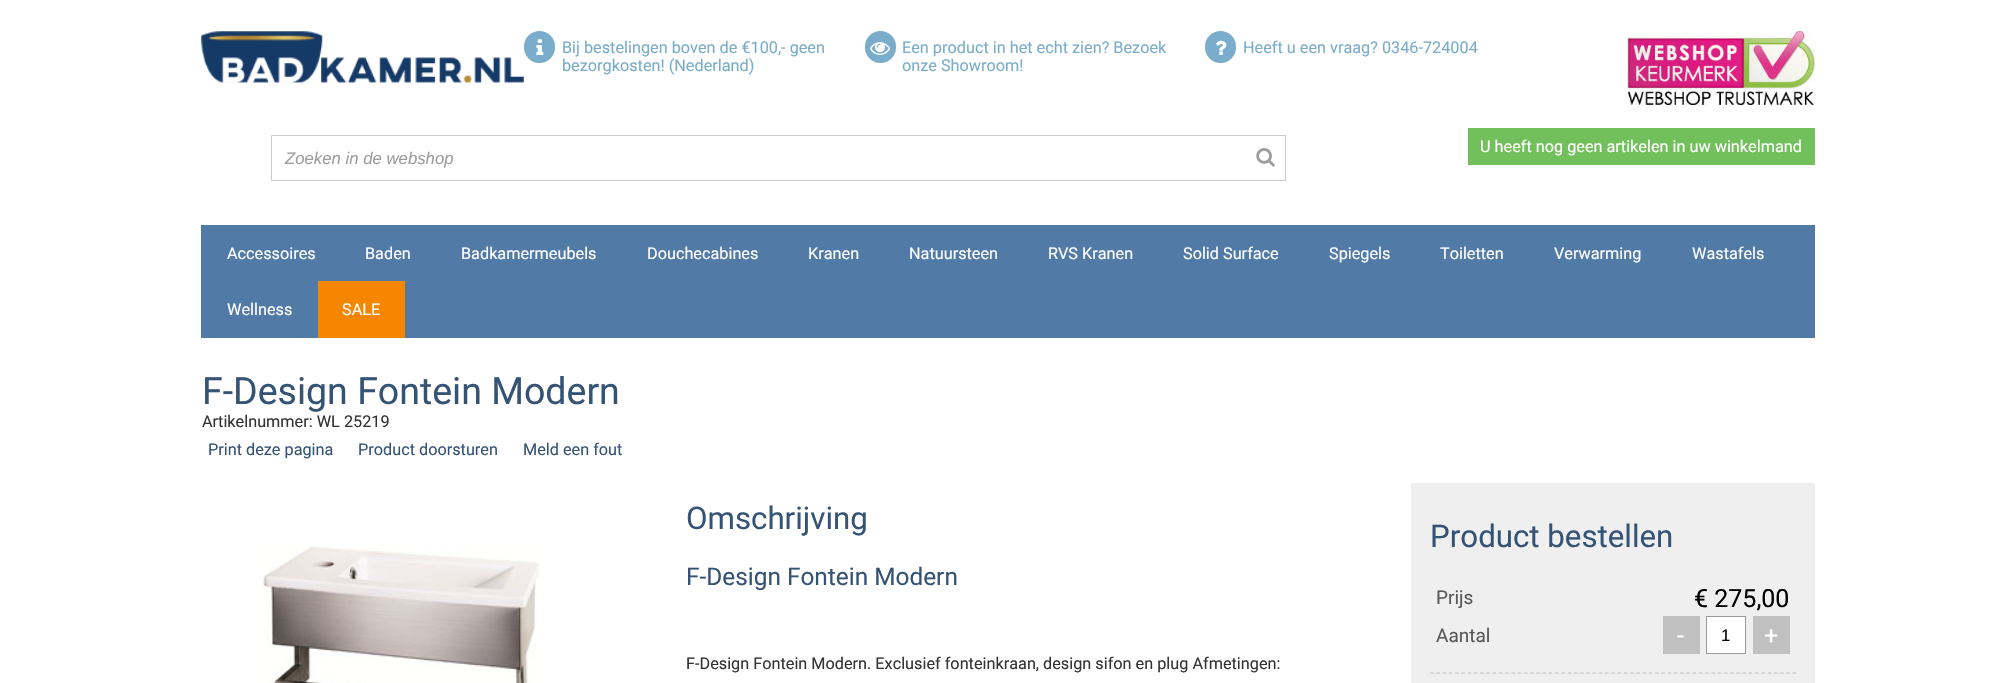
void draw(SkCanvas* canvas) {
  SkPaint paint;
  paint.setAntiAlias(true);
  auto face = [&](const char* family, int weight, float size, bool italic = false) {
    SkFontStyle style(weight, SkFontStyle::kNormal_Width,
      italic ? SkFontStyle::kItalic_Slant : SkFontStyle::kUpright_Slant);
    SkFont result(fontMgr->matchFamilyStyle(family, style), size);
    result.setSubpixel(true);
    return result;
  };
  auto paste = [&](const char* path, float x, float y, float w, float h) {
    auto image = SkImages::DeferredFromEncodedData(SkData::MakeFromFileName(path));
    canvas->drawImageRect(image, SkRect::MakeXYWH(x, y, w, h), SkSamplingOptions());
  };
  auto shape = [&](const char* data, bool evenOdd = false) {
    SkPath result = *SkParsePath::FromSVGString(data);
    if (evenOdd) result.setFillType(SkPathFillType::kEvenOdd);
    return result;
  };
  canvas->clear(0xffffffff);
  paste("img/1.png", 201, 31, 323, 52);
  paint.setColor(0xff7aadcb);
  canvas->drawRoundRect(SkRect::MakeXYWH(524, 31, 31, 32), 15.5f, 15.5f, paint);
  paste("img/2.png", 536, 39, 8, 16);
  canvas->drawRoundRect(SkRect::MakeXYWH(865, 31, 31, 32), 15.5f, 15.5f, paint);
  paste("img/3.png", 870, 42, 20, 13);
  canvas->drawRoundRect(SkRect::MakeXYWH(1205, 31, 31, 32), 15.5f, 15.5f, paint);
  paste("img/4.png", 1216, 40, 11, 15);
  paste("img/5.png", 1627, 31, 188, 74);
  paint.setColor(0xff72c05c);
  canvas->drawRect(SkRect::MakeXYWH(1468, 128, 347, 37), paint);
  paint.setStroke(true);
  paint.setStrokeWidth(1);
  paint.setColor(0xffcccccc);
  canvas->drawRect(SkRect::MakeXYWH(271.5f, 135.5f, 1014, 45), paint);
  paste("img/6.png", 1256, 148, 19, 19);
  paint.setStroke(false);
  paint.setColor(0xff517aa7);
  canvas->drawRect(SkRect::MakeXYWH(201, 225, 1614, 113), paint);
  paint.setColor(0xfff68500);
  canvas->drawRect(SkRect::MakeXYWH(318, 281, 87, 57), paint);
  paste("img/7.png", 258, 546, 283, 137);
  paint.setColor(0xffefefef);
  canvas->drawRect(SkRect::MakeXYWH(1411, 483, 404, 200), paint);
  paint.setColor(0xffc0c0c0);
  canvas->drawRect(SkRect::MakeXYWH(1663, 616, 37, 38), paint);
  paint.setColor(0xffffffff);
  canvas->drawRect(SkRect::MakeXYWH(1706.5f, 616.5f, 39, 37), paint);
  paint.setStroke(true);
  paint.setColor(0xff999999);
  canvas->drawRect(SkRect::MakeXYWH(1706.5f, 616.5f, 39, 37), paint);
  paint.setStroke(false);
  paint.setColor(0xffc0c0c0);
  canvas->drawRect(SkRect::MakeXYWH(1753, 616, 37, 38), paint);
  paint.setStroke(true);
  paint.setStrokeWidth(1.2f);
  paint.setPathEffect(SkDashPathEffect::Make({{3.75f, 2.5f}}, 0));
  canvas->drawPath(shape("M1430 673H1796"), paint);
  paint.setPathEffect(nullptr);
  auto f0 = face("Roboto", 400, 16.25f);
  paint.setStroke(false);
  paint.setColor(0xff7aadcb);
  {
    const struct { const char* s; float x, y; } items[] = {
      {"Bij bestelingen boven de €100,- geen", 562, 53},
      {"bezorgkosten! (Nederland)", 562, 71},
      {"Een product in het echt zien? Bezoek", 902, 53},
      {"onze Showroom!", 902, 71},
      {"Heeft u een vraag? 0346-724004", 1243, 53},
    };
    for (auto [s, x, y] : items) {
      canvas->drawString(s, x, y, f0, paint);
    }
  }
  paint.setColor(0xffffffff);
  canvas->drawString("U heeft nog geen artikelen in uw winkelmand", 1480, 152, f0, paint);
  auto f1 = face("Liberation Sans", 400, 16.75f, true);
  paint.setColor(0xff9d9d9d);
  canvas->drawString("Zoeken in de webshop", 285, 164, f1, paint);
  paint.setColor(0xffffffff);
  {
    const struct { const char* s; float x, y; } items[] = {
      {"Accessoires", 227, 259},
      {"Baden", 365, 259},
      {"Badkamermeubels", 461, 259},
      {"Douchecabines", 647, 259},
      {"Kranen", 808, 259},
      {"Natuursteen", 909, 259},
      {"RVS Kranen", 1048, 259},
      {"Solid Surface", 1183, 259},
      {"Spiegels", 1329, 259},
      {"Toiletten", 1440, 259},
      {"Verwarming", 1554, 259},
      {"Wastafels", 1692, 259},
      {"Wellness", 227, 315},
      {"SALE", 342, 315},
    };
    for (auto [s, x, y] : items) {
      canvas->drawString(s, x, y, f0, paint);
    }
  }
  auto f2 = face("Roboto", 400, 37.5f);
  paint.setColor(0xff355375);
  canvas->drawString("F-Design Fontein Modern", 202, 404, f2, paint);
  paint.setColor(0xff333333);
  canvas->drawString("Artikelnummer: WL 25219", 202, 427, f0, paint);
  paint.setColor(0xff355375);
  {
    const struct { const char* s; float x, y; } items[] = {
      {"Print deze pagina", 208, 455},
      {"Product doorsturen", 358, 455},
      {"Meld een fout", 523, 455},
    };
    for (auto [s, x, y] : items) {
      canvas->drawString(s, x, y, f0, paint);
    }
  }
  auto f3 = face("Roboto", 400, 31.25f);
  canvas->drawString("Omschrijving", 686, 529, f3, paint);
  auto f4 = face("Roboto", 400, 24.4f);
  canvas->drawString("F-Design Fontein Modern", 686, 585, f4, paint);
  paint.setColor(0xff333333);
  canvas->drawString("F-Design Fontein Modern. Exclusief fonteinkraan, design sifon en plug Afmetingen:", 686, 669, f0, paint);
  paint.setColor(0xff355375);
  canvas->drawString("Product bestellen", 1430, 547, f3, paint);
  auto f5 = face("Roboto", 400, 19);
  paint.setColor(0xff595757);
  canvas->drawString("Prijs", 1436, 604, f5, paint);
  auto f6 = face("Roboto", 400, 25);
  paint.setColor(0xff000000);
  canvas->drawString("€ 275,00", 1694, 607, f6, paint);
  paint.setColor(0xff595757);
  canvas->drawString("Aantal", 1436, 642, f5, paint);
  paint.setColor(0xffffffff);
  canvas->drawString("-", 1677, 644, f6, paint);
  auto f7 = face("Liberation Sans", 400, 16.75f);
  paint.setColor(0xff000000);
  canvas->drawString("1", 1721, 641, f7, paint);
  paint.setColor(0xffffffff);
  canvas->drawString("+", 1764, 644, f6, paint);
}
